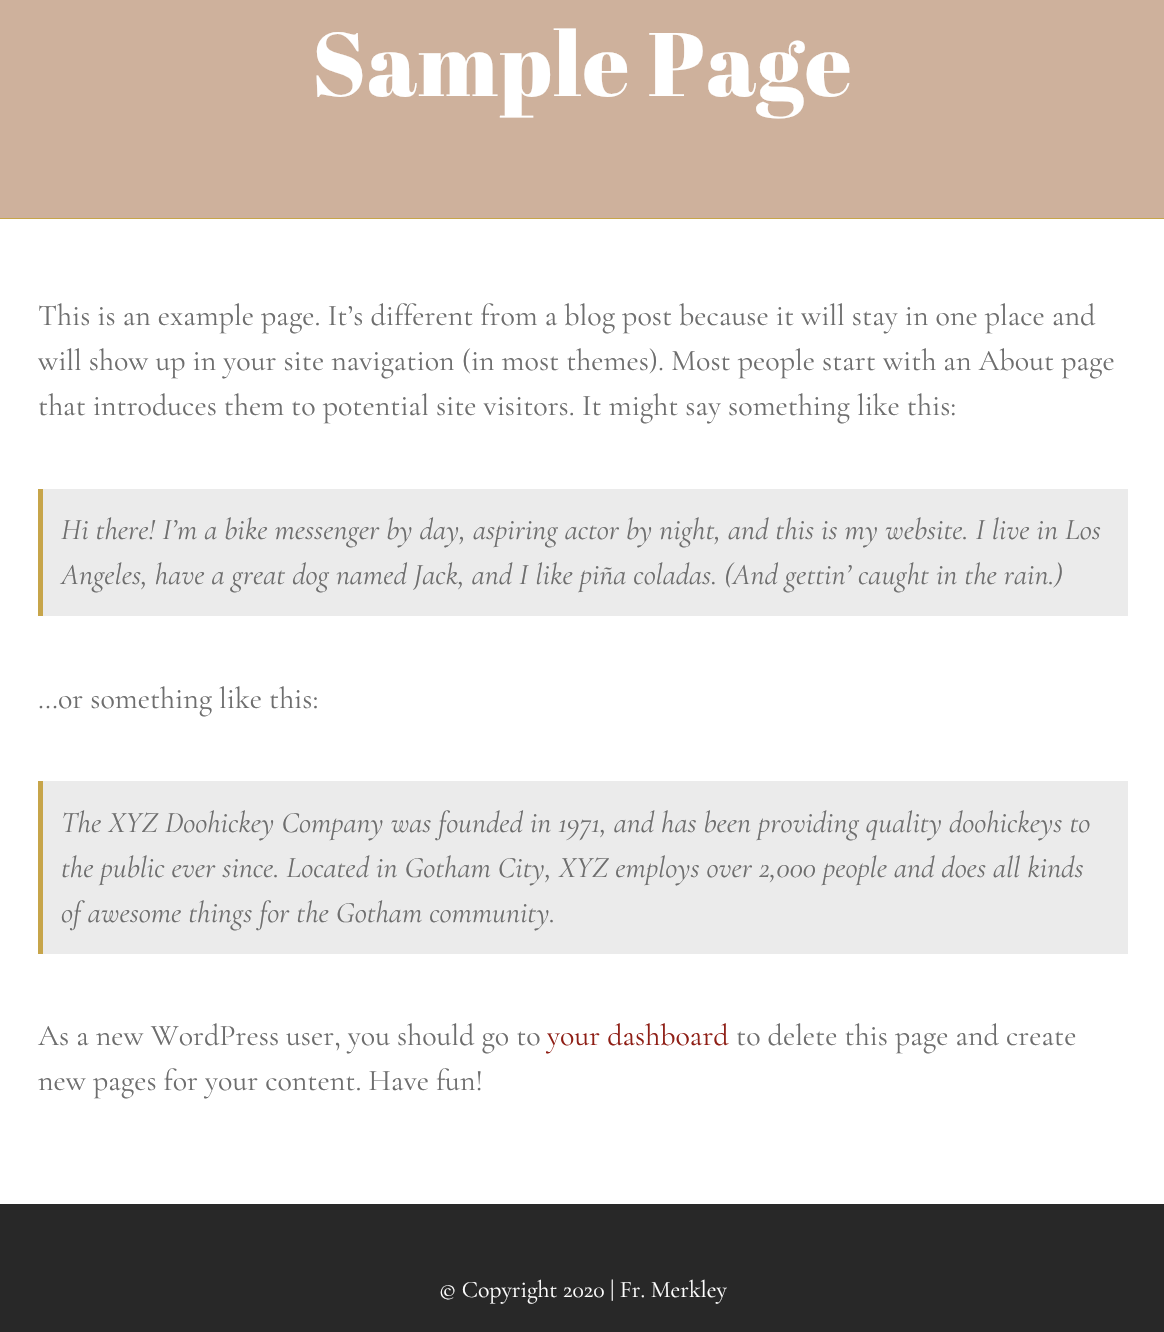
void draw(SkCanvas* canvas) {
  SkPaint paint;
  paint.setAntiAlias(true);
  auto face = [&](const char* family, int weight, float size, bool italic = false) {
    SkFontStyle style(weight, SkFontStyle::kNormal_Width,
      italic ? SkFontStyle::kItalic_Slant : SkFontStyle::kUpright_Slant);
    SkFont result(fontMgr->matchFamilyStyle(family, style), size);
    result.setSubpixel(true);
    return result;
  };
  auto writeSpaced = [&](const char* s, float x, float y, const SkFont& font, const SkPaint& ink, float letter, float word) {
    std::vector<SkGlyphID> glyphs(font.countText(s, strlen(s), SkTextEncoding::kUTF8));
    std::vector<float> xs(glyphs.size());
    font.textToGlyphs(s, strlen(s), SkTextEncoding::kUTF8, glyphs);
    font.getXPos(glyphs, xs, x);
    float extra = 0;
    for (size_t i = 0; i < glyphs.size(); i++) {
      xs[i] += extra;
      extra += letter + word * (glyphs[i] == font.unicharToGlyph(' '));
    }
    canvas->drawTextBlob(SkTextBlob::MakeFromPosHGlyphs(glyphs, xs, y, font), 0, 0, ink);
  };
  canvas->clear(0xffffffff);
  {
    const struct { float x, y, w, h; SkColor color; } items[] = {
      {0, 0, 1164, 218, 0xffceb19c},
      {0, 218, 1164, 1, 0xffc7a54a},
      {43, 489, 1085, 127, 0xffebebeb},
      {38, 489, 5, 127, 0xffc7a54a},
      {43, 781, 1085, 173, 0xffebebeb},
      {38, 781, 5, 173, 0xffc7a54a},
      {0, 1204, 1164, 128, 0xff282828},
    };
    for (auto [x, y, w, h, color] : items) {
      paint.setColor(color);
      canvas->drawRect(SkRect::MakeXYWH(x, y, w, h), paint);
    }
  }
  auto f0 = face("Abril Fatface", 400, 90);
  paint.setColor(0xffffffff);
  writeSpaced("Sample Page", 312, 96, f0, paint, 1.25f, 0);
  auto f1 = face("Cormorant Garamond", 400, 30);
  paint.setColor(0xff6e6e6e);
  {
    const struct { const char* s; float x, y; } items[] = {
      {"This is an example page. It’s different from a blog post because it will stay in one place and", 38, 325},
      {"will show up in your site navigation (in most themes). Most people start with an About page", 38, 370},
      {"that introduces them to potential site visitors. It might say something like this:", 38, 415},
    };
    for (auto [s, x, y] : items) {
      canvas->drawString(s, x, y, f1, paint);
    }
  }
  auto f2 = face("Cormorant Garamond", 400, 30, true);
  canvas->drawString("Hi there! I’m a bike messenger by day, aspiring actor by night, and this is my website. I live in Los", 61, 539, f2, paint);
  canvas->drawString("Angeles, have a great dog named Jack, and I like piña coladas. (And gettin’ caught in the rain.)", 61, 584, f2, paint);
  canvas->drawString("…or something like this:", 38, 708, f1, paint);
  {
    const struct { const char* s; float x, y; } items[] = {
      {"The XYZ Doohickey Company was founded in 1971, and has been providing quality doohickeys to", 61, 832},
      {"the public ever since. Located in Gotham City, XYZ employs over 2,000 people and does all kinds", 61, 877},
      {"of awesome things for the Gotham community.", 61, 922},
    };
    for (auto [s, x, y] : items) {
      canvas->drawString(s, x, y, f2, paint);
    }
  }
  canvas->drawString("As a new WordPress user, you should go to", 38, 1045, f1, paint);
  paint.setColor(0xff8f1f16);
  canvas->drawString("your dashboard", 547, 1045, f1, paint);
  paint.setColor(0xff6e6e6e);
  canvas->drawString("to delete this page and create", 736, 1045, f1, paint);
  canvas->drawString("new pages for your content. Have fun!", 38, 1090, f1, paint);
  auto f3 = face("Cormorant Garamond", 400, 23.75f);
  paint.setColor(0xffffffff);
  canvas->drawString("© Copyright 2020 | Fr. Merkley", 439, 1297, f3, paint);
}
